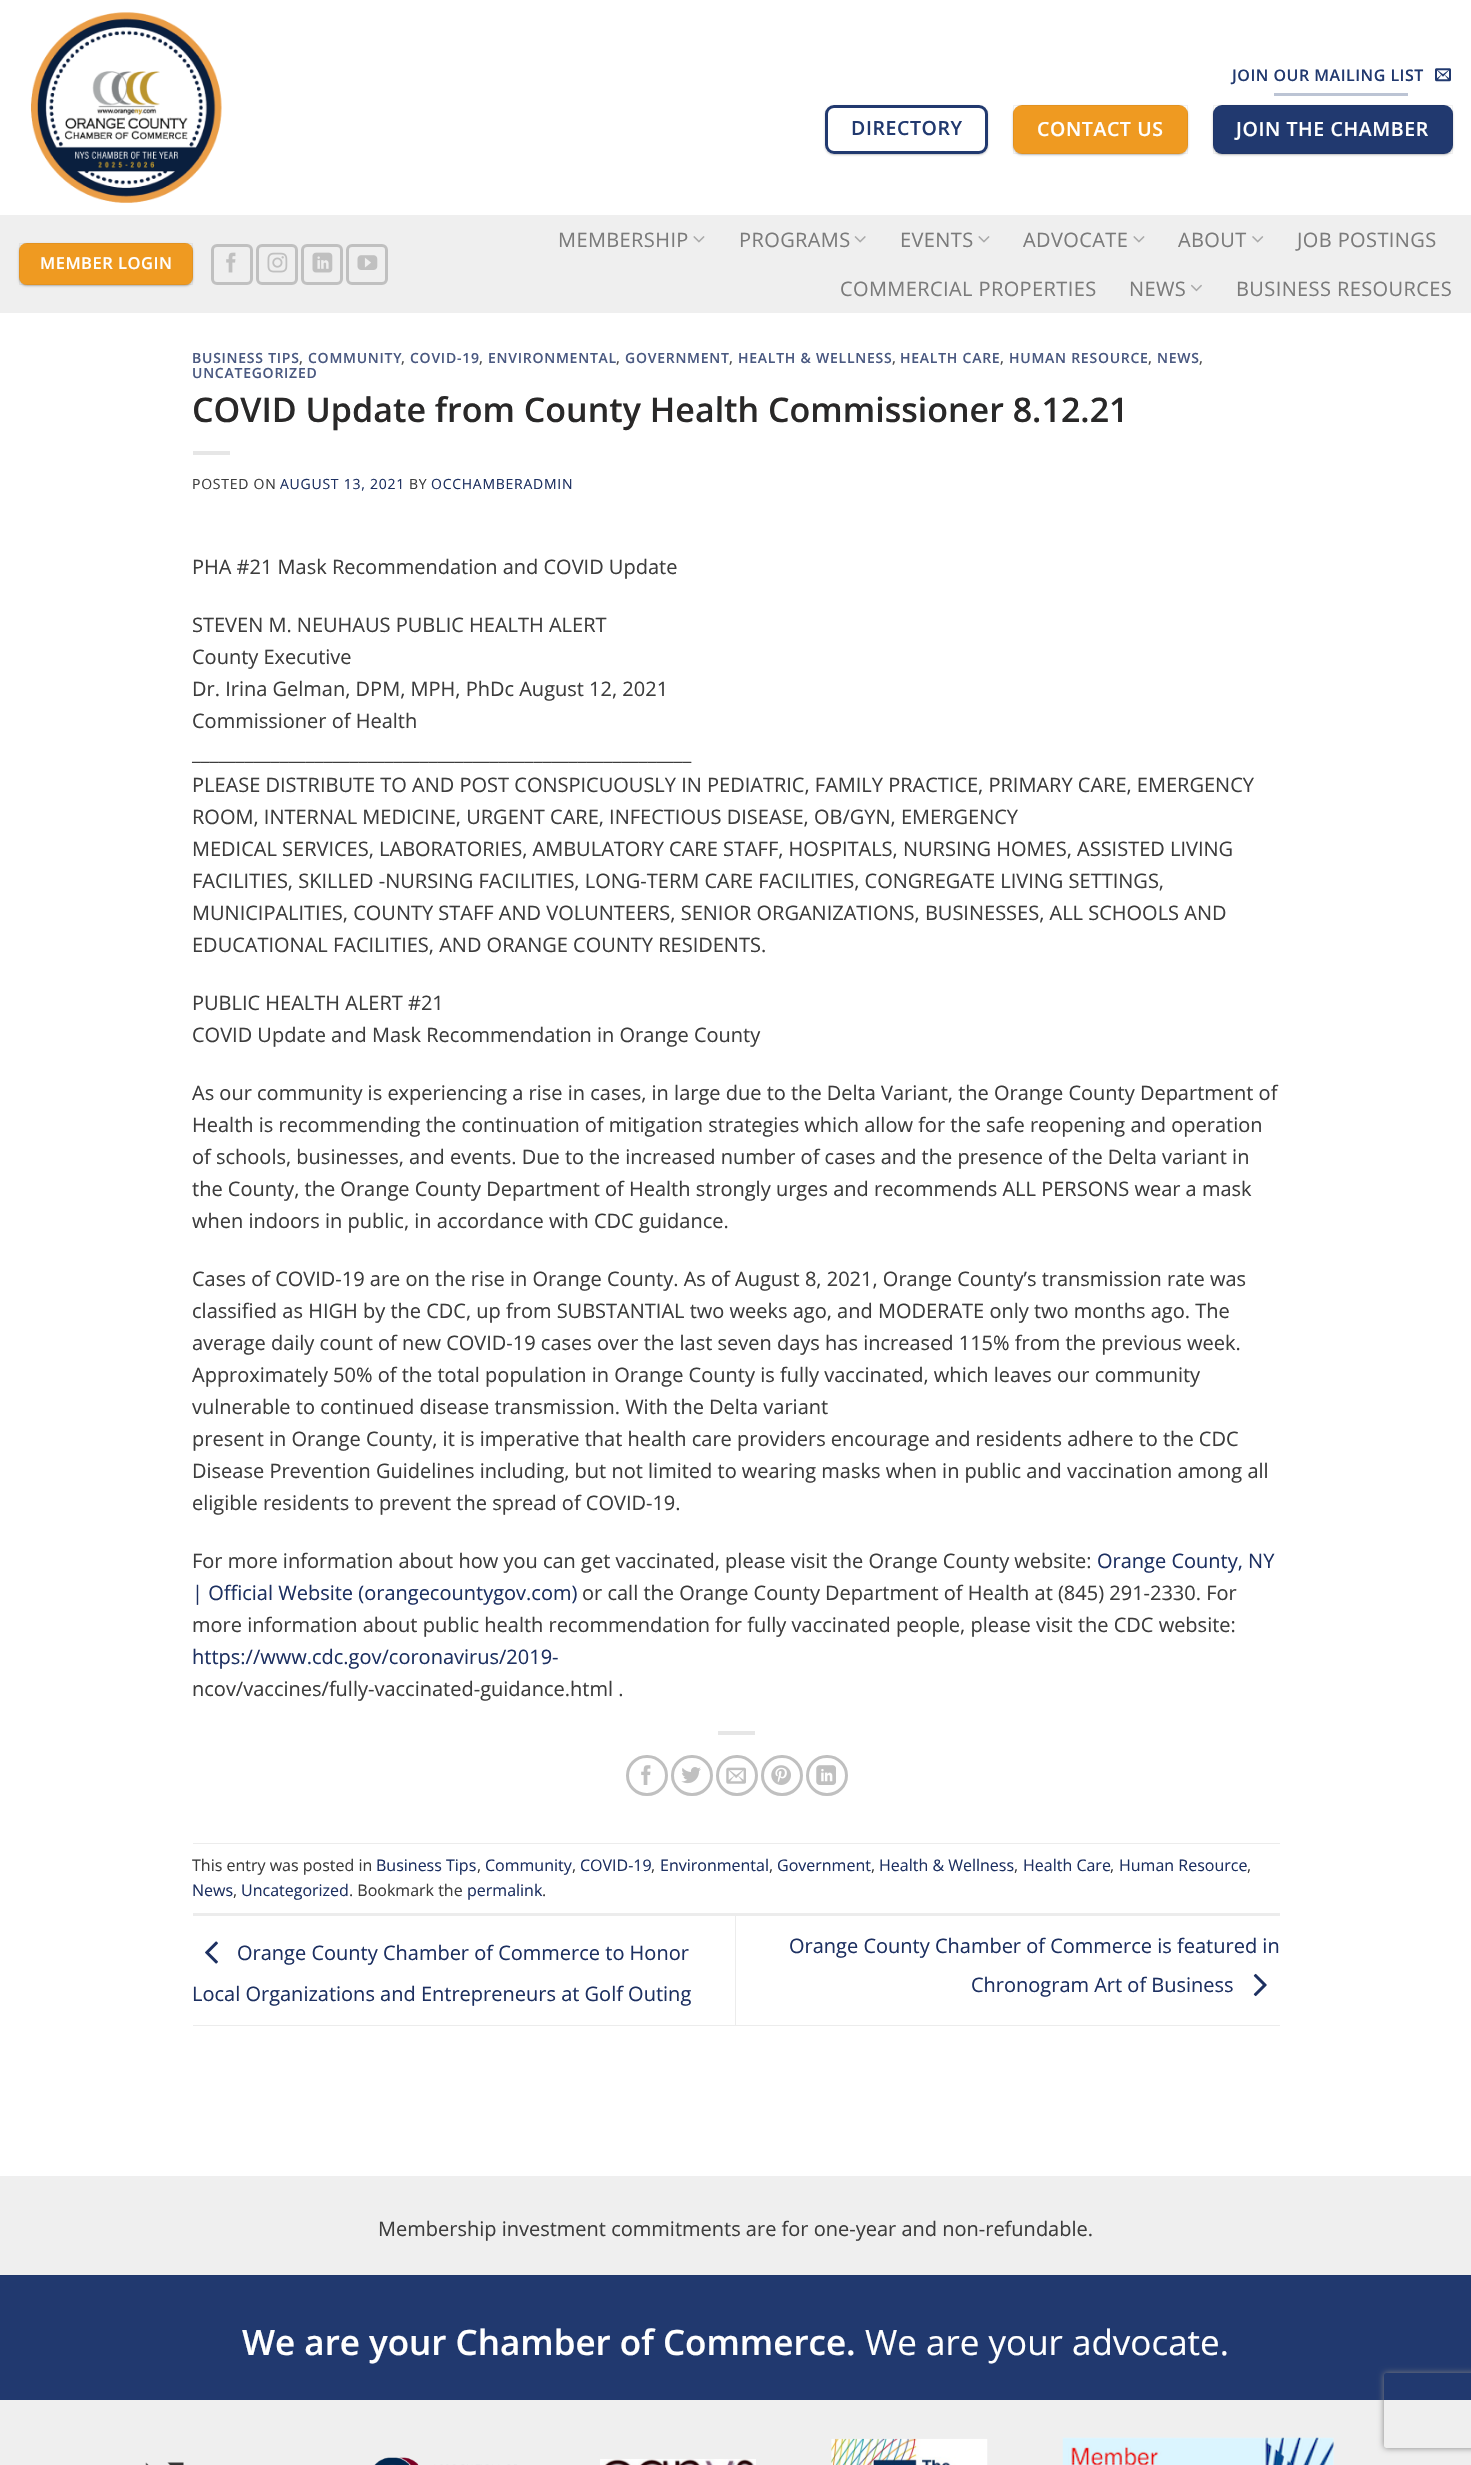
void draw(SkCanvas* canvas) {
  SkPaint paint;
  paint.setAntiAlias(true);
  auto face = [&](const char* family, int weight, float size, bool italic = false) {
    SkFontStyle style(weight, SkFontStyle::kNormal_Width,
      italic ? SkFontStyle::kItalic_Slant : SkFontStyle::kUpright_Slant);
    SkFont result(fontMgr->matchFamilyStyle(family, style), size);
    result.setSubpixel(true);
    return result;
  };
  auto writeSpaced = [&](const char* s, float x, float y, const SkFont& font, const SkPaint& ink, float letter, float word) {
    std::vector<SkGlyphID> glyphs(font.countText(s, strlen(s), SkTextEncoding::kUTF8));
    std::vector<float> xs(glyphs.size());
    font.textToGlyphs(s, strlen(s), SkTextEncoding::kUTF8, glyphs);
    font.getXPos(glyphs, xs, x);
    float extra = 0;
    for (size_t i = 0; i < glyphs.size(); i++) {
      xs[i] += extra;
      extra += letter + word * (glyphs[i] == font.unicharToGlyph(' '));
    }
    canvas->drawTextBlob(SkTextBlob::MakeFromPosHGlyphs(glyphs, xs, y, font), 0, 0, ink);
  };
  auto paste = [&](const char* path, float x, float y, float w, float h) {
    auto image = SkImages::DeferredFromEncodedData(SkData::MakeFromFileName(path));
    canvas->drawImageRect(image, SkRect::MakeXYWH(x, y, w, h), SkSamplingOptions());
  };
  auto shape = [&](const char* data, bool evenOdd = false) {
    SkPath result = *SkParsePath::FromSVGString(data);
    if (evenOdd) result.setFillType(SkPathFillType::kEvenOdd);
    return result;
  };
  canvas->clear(0xffffffff);
  paste("img/1.png", 31, 12, 191, 191);
  paste("img/2.png", 1435, 68, 16, 14);
  paint.setColor(0xffbcc4d4);
  canvas->drawRect(SkRect::MakeXYWH(1274, 93, 134, 3), paint);
  canvas->save();
  canvas->clipPath(shape("M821 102H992V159H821ZM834 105H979C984 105 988 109 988 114V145C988 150 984 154 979 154H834C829 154 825 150 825 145V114C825 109 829 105 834 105Z", true), true);
  paint.setColor(0x3d000000);
  paint.setMaskFilter(SkMaskFilter::MakeBlur(kNormal_SkBlurStyle, 1));
  canvas->drawRoundRect(SkRect::MakeXYWH(825, 106, 163, 49), 9, 9, paint);
  paint.setMaskFilter(nullptr);
  canvas->restore();
  paint.setStroke(true);
  paint.setStrokeWidth(3);
  paint.setColor(0xff21396f);
  canvas->drawRoundRect(SkRect::MakeXYWH(826.5f, 106.5f, 160, 46), 7.5f, 7.5f, paint);
  paint.setStroke(false);
  paint.setColor(0x3d000000);
  paint.setMaskFilter(SkMaskFilter::MakeBlur(kNormal_SkBlurStyle, 1));
  canvas->drawRoundRect(SkRect::MakeXYWH(1013, 106, 175, 49), 9, 9, paint);
  paint.setMaskFilter(nullptr);
  paint.setColor(0x1f000000);
  paint.setMaskFilter(SkMaskFilter::MakeBlur(kNormal_SkBlurStyle, 2));
  canvas->drawRoundRect(SkRect::MakeXYWH(1015, 109, 170, 44), 6, 6, paint);
  paint.setMaskFilter(nullptr);
  paint.setColor(0xffef9a21);
  canvas->drawRoundRect(SkRect::MakeXYWH(1013, 105, 175, 49), 9, 9, paint);
  paint.setStroke(true);
  paint.setStrokeWidth(1);
  paint.setColor(0x0d000000);
  canvas->drawRect(SkRect::MakeXYWH(1013.5f, 105.5f, 174, 48), paint);
  paint.setStroke(false);
  paint.setColor(0x3d000000);
  paint.setMaskFilter(SkMaskFilter::MakeBlur(kNormal_SkBlurStyle, 1));
  canvas->drawRoundRect(SkRect::MakeXYWH(1213, 106, 240, 49), 9, 9, paint);
  paint.setMaskFilter(nullptr);
  paint.setColor(0x1f000000);
  paint.setMaskFilter(SkMaskFilter::MakeBlur(kNormal_SkBlurStyle, 2));
  canvas->drawRoundRect(SkRect::MakeXYWH(1215, 109, 235, 44), 6, 6, paint);
  paint.setMaskFilter(nullptr);
  paint.setColor(0xff21396f);
  canvas->drawRoundRect(SkRect::MakeXYWH(1213, 105, 240, 49), 9, 9, paint);
  paint.setStroke(true);
  paint.setColor(0x0d000000);
  canvas->drawRect(SkRect::MakeXYWH(1213.5f, 105.5f, 239, 48), paint);
  paint.setStroke(false);
  paint.setColor(0xffefefef);
  canvas->drawRect(SkRect::MakeXYWH(0, 215, 1471, 98), paint);
  paint.setColor(0x3d000000);
  paint.setMaskFilter(SkMaskFilter::MakeBlur(kNormal_SkBlurStyle, 1));
  canvas->drawRoundRect(SkRect::MakeXYWH(19, 244, 174, 42), 8, 8, paint);
  paint.setMaskFilter(nullptr);
  paint.setColor(0x1f000000);
  paint.setMaskFilter(SkMaskFilter::MakeBlur(kNormal_SkBlurStyle, 2));
  canvas->drawRoundRect(SkRect::MakeXYWH(21, 246, 169, 38), 5, 5, paint);
  paint.setMaskFilter(nullptr);
  paint.setColor(0xffef9a21);
  canvas->drawRoundRect(SkRect::MakeXYWH(19, 243, 174, 42), 8, 8, paint);
  paint.setStroke(true);
  paint.setColor(0x0d000000);
  canvas->drawRect(SkRect::MakeXYWH(19.5f, 243.5f, 173, 41), paint);
  paint.setStrokeWidth(3);
  paint.setColor(0xffc0c0c0);
  canvas->drawRoundRect(SkRect::MakeXYWH(212.5f, 245.5f, 39, 38), 4.5f, 4.5f, paint);
  paste("img/3.png", 226, 252, 10, 21);
  canvas->drawRoundRect(SkRect::MakeXYWH(257.5f, 245.5f, 39, 38), 4.5f, 4.5f, paint);
  paste("img/4.png", 267, 252, 21, 21);
  canvas->drawRoundRect(SkRect::MakeXYWH(302.5f, 245.5f, 39, 38), 4.5f, 4.5f, paint);
  paste("img/5.png", 312, 252, 21, 21);
  canvas->drawRoundRect(SkRect::MakeXYWH(347.5f, 245.5f, 39, 38), 4.5f, 4.5f, paint);
  paste("img/6.png", 357, 255, 21, 15);
  paste("img/7.png", 693, 236, 12, 7);
  paste("img/8.png", 854, 236, 12, 7);
  paste("img/7.png", 978, 236, 12, 7);
  paste("img/7.png", 1133, 236, 12, 7);
  paste("img/9.png", 1252, 236, 12, 7);
  paste("img/10.png", 1191, 284, 11, 8);
  paint.setStroke(false);
  paint.setColor(0xffe6e6e6);
  canvas->drawRect(SkRect::MakeXYWH(193, 451, 37, 4), paint);
  canvas->drawRect(SkRect::MakeXYWH(718, 1731, 37, 4), paint);
  paint.setStroke(true);
  paint.setColor(0xffc0c0c0);
  canvas->drawRoundRect(SkRect::MakeXYWH(627.5f, 1756.5f, 39, 38), 19, 19, paint);
  paste("img/11.png", 641, 1765, 10, 20);
  canvas->drawRoundRect(SkRect::MakeXYWH(672.5f, 1756.5f, 39, 38), 19, 19, paint);
  paste("img/12.png", 681, 1767, 20, 17);
  canvas->drawRoundRect(SkRect::MakeXYWH(717.5f, 1756.5f, 39, 38), 19, 19, paint);
  paste("img/13.png", 726, 1767, 20, 17);
  canvas->drawRoundRect(SkRect::MakeXYWH(762.5f, 1756.5f, 39, 38), 19, 19, paint);
  paste("img/14.png", 771, 1765, 20, 20);
  canvas->drawRoundRect(SkRect::MakeXYWH(807.5f, 1756.5f, 39, 38), 19, 19, paint);
  paste("img/15.png", 816, 1765, 20, 20);
  paint.setStroke(false);
  {
    const struct { float x, y, w, h; SkColor color; } items[] = {
      {193, 1843, 1087, 1, 0xffececec},
      {193, 1913, 1087, 3, 0xffececec},
      {193, 2025, 1087, 1, 0xffececec},
    };
    for (auto [x, y, w, h, color] : items) {
      paint.setColor(color);
      canvas->drawRect(SkRect::MakeXYWH(x, y, w, h), paint);
    }
  }
  paste("img/16.png", 205, 1941, 13, 23);
  canvas->drawRect(SkRect::MakeXYWH(735, 1916, 1, 109), paint);
  paste("img/17.png", 1253, 1973, 14, 24);
  {
    const struct { float x, y, w, h; SkColor color; } items[] = {
      {0, 2176, 1471, 99, 0xffefefef},
      {0, 2276, 1471, 124, 0xff21396f},
      {0, 2275, 1471, 1, 0xff1f3669},
      {0, 2400, 1471, 65, 0xffefefef},
    };
    for (auto [x, y, w, h, color] : items) {
      paint.setColor(color);
      canvas->drawRect(SkRect::MakeXYWH(x, y, w, h), paint);
    }
  }
  paste("img/18.png", 145, 2462, 39, 3);
  paste("img/19.png", 374, 2457, 143, 8);
  paste("img/20.png", 600, 2459, 156, 6);
  paste("img/21.png", 831, 2438, 157, 27);
  paste("img/22.png", 1062, 2437, 272, 28);
  canvas->save();
  canvas->clipPath(shape("M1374 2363H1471V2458H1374ZM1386.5 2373H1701.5C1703 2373 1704 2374 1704 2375.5V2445.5C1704 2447 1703 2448 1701.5 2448H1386.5C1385 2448 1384 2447 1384 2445.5V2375.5C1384 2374 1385 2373 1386.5 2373Z", true), true);
  paint.setColor(0xff808080);
  paint.setMaskFilter(SkMaskFilter::MakeBlur(kNormal_SkBlurStyle, 3));
  canvas->drawRoundRect(SkRect::MakeXYWH(1384, 2373, 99, 75), 2.5f, 2.5f, paint);
  paint.setMaskFilter(nullptr);
  canvas->restore();
  auto f0 = face("Open Sans", 600, 16);
  paint.setColor(0xff21396f);
  writeSpaced("JOIN OUR MAILING LIST", 1232, 81, f0, paint, 0.5f, 0);
  auto f1 = face("Open Sans", 600, 19.5f);
  writeSpaced("DIRECTORY", 851, 135, f1, paint, 0.6f, 0);
  paint.setColor(0xffffffff);
  writeSpaced("CONTACT US", 1037, 136, f1, paint, 0.6f, 0);
  writeSpaced("JOIN THE CHAMBER", 1236, 136, f1, paint, 0.6f, 0);
  auto f2 = face("Open Sans", 600, 16.5f);
  writeSpaced("MEMBER LOGIN", 40, 269, f2, paint, 0.5f, 0);
  auto f3 = face("Open Sans", 400, 20);
  paint.setColor(0xff7b7b7b);
  {
    const struct { const char* s; float x, y; } items[] = {
      {"MEMBERSHIP", 558, 247},
      {"PROGRAMS", 739, 247},
      {"EVENTS", 900, 247},
      {"ADVOCATE", 1023, 247},
      {"ABOUT", 1178, 247},
      {"JOB POSTINGS", 1297, 247},
      {"COMMERCIAL PROPERTIES", 840, 296},
      {"NEWS", 1129, 296},
      {"BUSINESS RESOURCES", 1236, 296},
    };
    for (auto [s, x, y] : items) {
      writeSpaced(s, x, y, f3, paint, 0.4f, 0);
    }
  }
  auto f4 = face("Open Sans", 600, 14);
  paint.setColor(0xff4a5981);
  writeSpaced("BUSINESS TIPS", 192, 363, f4, paint, 0.75f, 0);
  paint.setColor(0xff545353);
  writeSpaced(",", 299, 363, f4, paint, 0.75f, 0);
  paint.setColor(0xff4a5981);
  writeSpaced("COMMUNITY", 308, 363, f4, paint, 0.75f, 0);
  paint.setColor(0xff545353);
  writeSpaced(",", 401, 363, f4, paint, 0.75f, 0);
  paint.setColor(0xff4a5981);
  writeSpaced("COVID-19", 410, 363, f4, paint, 0.75f, 0);
  paint.setColor(0xff545353);
  writeSpaced(",", 479, 363, f4, paint, 0.75f, 0);
  paint.setColor(0xff4a5981);
  writeSpaced("ENVIRONMENTAL", 488, 363, f4, paint, 0.75f, 0);
  paint.setColor(0xff545353);
  writeSpaced(",", 616, 363, f4, paint, 0.75f, 0);
  paint.setColor(0xff4a5981);
  writeSpaced("GOVERNMENT", 625, 363, f4, paint, 0.75f, 0);
  paint.setColor(0xff545353);
  writeSpaced(",", 729, 363, f4, paint, 0.75f, 0);
  paint.setColor(0xff4a5981);
  writeSpaced("HEALTH & WELLNESS", 738, 363, f4, paint, 0.75f, 0);
  paint.setColor(0xff545353);
  writeSpaced(",", 892, 363, f4, paint, 0.75f, 0);
  paint.setColor(0xff4a5981);
  writeSpaced("HEALTH CARE", 900, 363, f4, paint, 0.75f, 0);
  paint.setColor(0xff545353);
  writeSpaced(",", 1000, 363, f4, paint, 0.75f, 0);
  paint.setColor(0xff4a5981);
  writeSpaced("HUMAN RESOURCE", 1009, 363, f4, paint, 0.75f, 0);
  paint.setColor(0xff545353);
  writeSpaced(",", 1148, 363, f4, paint, 0.75f, 0);
  paint.setColor(0xff4a5981);
  writeSpaced("NEWS", 1157, 363, f4, paint, 0.75f, 0);
  paint.setColor(0xff545353);
  writeSpaced(",", 1199, 363, f4, paint, 0.75f, 0);
  paint.setColor(0xff4a5981);
  writeSpaced("UNCATEGORIZED", 192, 378, f4, paint, 0.75f, 0);
  auto f5 = face("Open Sans", 600, 34);
  paint.setColor(0xff292828);
  canvas->drawString("COVID Update from County Health Commissioner 8.12.21", 192, 422, f5, paint);
  auto f6 = face("Open Sans", 400, 14);
  paint.setColor(0xff3d3d3d);
  writeSpaced("POSTED ON", 192, 489, f6, paint, 0.75f, 0);
  paint.setColor(0xff1d3061);
  writeSpaced("AUGUST 13, 2021", 280, 489, f6, paint, 0.75f, 0);
  paint.setColor(0xff3d3d3d);
  writeSpaced("BY", 409, 489, f6, paint, 0.75f, 0);
  paint.setColor(0xff1d3061);
  writeSpaced("OCCHAMBERADMIN", 431, 489, f6, paint, 0.75f, 0);
  paint.setColor(0xff3d3d3d);
  {
    const struct { const char* s; float x, y; } items[] = {
      {"PHA #21 Mask Recommendation and COVID Update", 192, 574},
      {"STEVEN M. NEUHAUS PUBLIC HEALTH ALERT", 192, 632},
      {"County Executive", 192, 664},
      {"Dr. Irina Gelman, DPM, MPH, PhDc August 12, 2021", 192, 696},
      {"Commissioner of Health", 192, 728},
      {"_________________________________________________________", 192, 760},
      {"PLEASE DISTRIBUTE TO AND POST CONSPICUOUSLY IN PEDIATRIC, FAMILY PRACTICE, PRIMARY CARE, EMERGENCY", 192, 792},
      {"ROOM, INTERNAL MEDICINE, URGENT CARE, INFECTIOUS DISEASE, OB/GYN, EMERGENCY", 192, 824},
      {"MEDICAL SERVICES, LABORATORIES, AMBULATORY CARE STAFF, HOSPITALS, NURSING HOMES, ASSISTED LIVING", 192, 856},
      {"FACILITIES, SKILLED -NURSING FACILITIES, LONG-TERM CARE FACILITIES, CONGREGATE LIVING SETTINGS,", 192, 888},
      {"MUNICIPALITIES, COUNTY STAFF AND VOLUNTEERS, SENIOR ORGANIZATIONS, BUSINESSES, ALL SCHOOLS AND", 192, 920},
      {"EDUCATIONAL FACILITIES, AND ORANGE COUNTY RESIDENTS.", 192, 952},
      {"PUBLIC HEALTH ALERT #21", 192, 1010},
      {"COVID Update and Mask Recommendation in Orange County", 192, 1042},
      {"As our community is experiencing a rise in cases, in large due to the Delta Variant, the Orange County Department of", 192, 1100},
      {"Health is recommending the continuation of mitigation strategies which allow for the safe reopening and operation", 192, 1132},
      {"of schools, businesses, and events. Due to the increased number of cases and the presence of the Delta variant in", 192, 1164},
      {"the County, the Orange County Department of Health strongly urges and recommends ALL PERSONS wear a mask", 192, 1196},
      {"when indoors in public, in accordance with CDC guidance.", 192, 1228},
      {"Cases of COVID-19 are on the rise in Orange County. As of August 8, 2021, Orange County’s transmission rate was", 192, 1286},
      {"classified as HIGH by the CDC, up from SUBSTANTIAL two weeks ago, and MODERATE only two months ago. The", 192, 1318},
      {"average daily count of new COVID-19 cases over the last seven days has increased 115% from the previous week.", 192, 1350},
      {"Approximately 50% of the total population in Orange County is fully vaccinated, which leaves our community", 192, 1382},
      {"vulnerable to continued disease transmission. With the Delta variant", 192, 1414},
      {"present in Orange County, it is imperative that health care providers encourage and residents adhere to the CDC", 192, 1446},
      {"Disease Prevention Guidelines including, but not limited to wearing masks when in public and vaccination among all", 192, 1478},
      {"eligible residents to prevent the spread of COVID-19.", 192, 1510},
      {"For more information about how you can get vaccinated, please visit the Orange County website:", 192, 1568},
    };
    for (auto [s, x, y] : items) {
      canvas->drawString(s, x, y, f3, paint);
    }
  }
  paint.setColor(0xff1d3061);
  canvas->drawString("Orange County, NY", 1097, 1568, f3, paint);
  canvas->drawString("| Official Website (orangecountygov.com)", 192, 1600, f3, paint);
  paint.setColor(0xff3d3d3d);
  canvas->drawString("or call the Orange County Department of Health at (845) 291-2330. For", 582, 1600, f3, paint);
  canvas->drawString("more information about public health recommendation for fully vaccinated people, please visit the CDC website:", 192, 1632, f3, paint);
  paint.setColor(0xff1d3061);
  canvas->drawString("https://www.cdc.gov/coronavirus/2019-", 192, 1664, f3, paint);
  paint.setColor(0xff3d3d3d);
  canvas->drawString("ncov/vaccines/fully-vaccinated-guidance.html .", 192, 1696, f3, paint);
  auto f7 = face("Open Sans", 400, 16);
  canvas->drawString("This entry was posted in", 192, 1871, f7, paint);
  paint.setColor(0xff1d3061);
  canvas->drawString("Business Tips", 376, 1871, f7, paint);
  paint.setColor(0xff3d3d3d);
  canvas->drawString(",", 477, 1871, f7, paint);
  paint.setColor(0xff1d3061);
  canvas->drawString("Community", 485, 1871, f7, paint);
  paint.setColor(0xff3d3d3d);
  canvas->drawString(",", 572, 1871, f7, paint);
  paint.setColor(0xff1d3061);
  canvas->drawString("COVID-19", 580, 1871, f7, paint);
  paint.setColor(0xff3d3d3d);
  canvas->drawString(",", 651, 1871, f7, paint);
  paint.setColor(0xff1d3061);
  canvas->drawString("Environmental", 660, 1871, f7, paint);
  paint.setColor(0xff3d3d3d);
  canvas->drawString(",", 769, 1871, f7, paint);
  paint.setColor(0xff1d3061);
  canvas->drawString("Government", 777, 1871, f7, paint);
  paint.setColor(0xff3d3d3d);
  canvas->drawString(",", 871, 1871, f7, paint);
  paint.setColor(0xff1d3061);
  canvas->drawString("Health & Wellness", 879, 1871, f7, paint);
  paint.setColor(0xff3d3d3d);
  canvas->drawString(",", 1014, 1871, f7, paint);
  paint.setColor(0xff1d3061);
  canvas->drawString("Health Care", 1023, 1871, f7, paint);
  paint.setColor(0xff3d3d3d);
  canvas->drawString(",", 1110, 1871, f7, paint);
  paint.setColor(0xff1d3061);
  canvas->drawString("Human Resource", 1119, 1871, f7, paint);
  paint.setColor(0xff3d3d3d);
  canvas->drawString(",", 1247, 1871, f7, paint);
  paint.setColor(0xff1d3061);
  canvas->drawString("News", 192, 1896, f7, paint);
  paint.setColor(0xff3d3d3d);
  canvas->drawString(",", 233, 1896, f7, paint);
  paint.setColor(0xff1d3061);
  canvas->drawString("Uncategorized", 241, 1896, f7, paint);
  paint.setColor(0xff3d3d3d);
  canvas->drawString(". Bookmark the", 349, 1896, f7, paint);
  paint.setColor(0xff1d3061);
  canvas->drawString("permalink", 467, 1896, f7, paint);
  paint.setColor(0xff3d3d3d);
  canvas->drawString(".", 542, 1896, f7, paint);
  paint.setColor(0xff1d3061);
  {
    const struct { const char* s; float x, y; } items[] = {
      {"Orange County Chamber of Commerce to Honor", 237, 1960},
      {"Local Organizations and Entrepreneurs at Golf Outing", 192, 2001},
      {"Orange County Chamber of Commerce is featured in", 789, 1953},
      {"Chronogram Art of Business", 971, 1992},
    };
    for (auto [s, x, y] : items) {
      canvas->drawString(s, x, y, f3, paint);
    }
  }
  paint.setColor(0xff3d3d3d);
  canvas->drawString("Membership investment commitments are for one-year and non-refundable.", 378, 2236, f3, paint);
  auto f8 = face("Open Sans", 600, 35);
  paint.setColor(0xffffffff);
  canvas->drawString("We are your Chamber of Commerce.", 242, 2355, f8, paint);
  auto f9 = face("Open Sans", 400, 35);
  canvas->drawString("We are your advocate.", 865, 2355, f9, paint);
}
